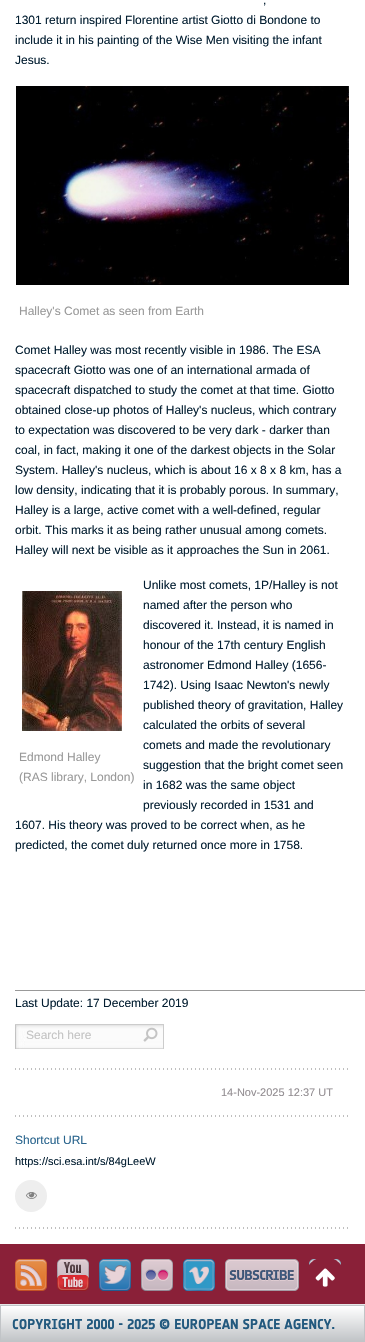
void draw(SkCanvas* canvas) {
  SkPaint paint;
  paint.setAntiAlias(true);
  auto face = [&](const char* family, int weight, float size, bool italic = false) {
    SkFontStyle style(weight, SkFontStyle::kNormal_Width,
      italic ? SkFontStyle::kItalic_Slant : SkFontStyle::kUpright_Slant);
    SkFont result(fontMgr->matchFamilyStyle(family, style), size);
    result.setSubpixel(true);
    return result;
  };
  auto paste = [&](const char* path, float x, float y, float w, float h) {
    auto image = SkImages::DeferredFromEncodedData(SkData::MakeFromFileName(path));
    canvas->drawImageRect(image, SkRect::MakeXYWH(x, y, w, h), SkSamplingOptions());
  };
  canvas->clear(0xffe6e6e6);
  paint.setColor(0xffffffff);
  canvas->drawRect(SkRect::MakeXYWH(0, 0, 365, 1244), paint);
  paste("img/1.png", 16, 86, 333, 199);
  paste("img/2.png", 22, 591, 100, 140);
  paint.setColor(0xff999999);
  canvas->drawRect(SkRect::MakeXYWH(15, 990, 350, 1), paint);
  paste("img/3.png", 15, 1025, 148, 24);
  paint.setColor(0xffcccccc);
  canvas->drawRect(SkRect::MakeXYWH(15, 1024, 149, 1), paint);
  canvas->drawRect(SkRect::MakeXYWH(163, 1024, 1, 25), paint);
  paste("img/4.png", 143, 1027, 15, 15);
  paste("img/5.png", 15, 1068, 333, 2);
  paste("img/5.png", 15, 1115, 333, 2);
  paint.setColor(0xffeeeeee);
  canvas->drawCircle(31, 1196, 16, paint);
  paste("img/6.png", 26, 1192, 11, 7);
  paste("img/5.png", 15, 1227, 333, 2);
  paint.setColor(0xff8a2038);
  canvas->drawRect(SkRect::MakeXYWH(0, 1244, 365, 60), paint);
  paste("img/14.png", 309, 1259, 32, 6);
  canvas->drawCircle(325, 1277, 20, paint);
  paste("img/7.png", 315, 1268, 20, 19);
  paste("img/8.png", 15, 1259, 32, 32);
  paste("img/9.png", 57, 1259, 32, 32);
  paste("img/10.png", 99, 1259, 32, 32);
  paste("img/11.png", 141, 1259, 32, 32);
  paste("img/12.png", 183, 1259, 32, 32);
  paste("img/13.png", 225, 1259, 74, 32);
  {
    const SkColor colors[] = {0xffffffff, 0xffc1c4c7};
    const float stops[] = {0, 1};
    const SkPoint ends[] = {{183, 1306}, {183, 1341}};
    paint.setShader(SkGradientShader::MakeLinear(ends, colors, stops, 2, SkTileMode::kClamp));
    paint.setAlpha(255);
  }
  canvas->drawRect(SkRect::MakeXYWH(1, 1306, 363, 35), paint);
  paint.setStroke(true);
  paint.setStrokeWidth(1);
  paint.setShader(nullptr);
  paint.setColor(0xffc1c4c7);
  canvas->drawRect(SkRect::MakeXYWH(0.5f, 1305.5f, 364, 36), paint);
  auto f0 = face("Liberation Sans", 400, 12);
  paint.setStroke(false);
  paint.setColor(0xff031e31);
  {
    const struct { const char* s; float x, y; } items[] = {
      {",", 263, 4},
      {"1301 return inspired Florentine artist Giotto di Bondone to", 15, 24},
      {"include it in his painting of the Wise Men visiting the infant", 15, 44},
      {"Jesus.", 15, 64},
    };
    for (auto [s, x, y] : items) {
      canvas->drawString(s, x, y, f0, paint);
    }
  }
  paint.setColor(0xff999999);
  canvas->drawString("Halley's Comet as seen from Earth", 19, 315, f0, paint);
  paint.setColor(0xff031e31);
  {
    const struct { const char* s; float x, y; } items[] = {
      {"Comet Halley was most recently visible in 1986. The ESA", 15, 354},
      {"spacecraft Giotto was one of an international armada of", 15, 374},
      {"spacecraft dispatched to study the comet at that time. Giotto", 15, 394},
      {"obtained close-up photos of Halley's nucleus, which contrary", 15, 414},
      {"to expectation was discovered to be very dark - darker than", 15, 434},
      {"coal, in fact, making it one of the darkest objects in the Solar", 15, 454},
      {"System. Halley's nucleus, which is about 16 x 8 x 8 km, has a", 15, 474},
      {"low density, indicating that it is probably porous. In summary,", 15, 494},
      {"Halley is a large, active comet with a well-defined, regular", 15, 514},
      {"orbit. This marks it as being rather unusual among comets.", 15, 534},
      {"Halley will next be visible as it approaches the Sun in 2061.", 15, 554},
      {"Unlike most comets, 1P/Halley is not", 143, 589},
      {"named after the person who", 143, 609},
      {"discovered it. Instead, it is named in", 143, 629},
      {"honour of the 17th century English", 143, 649},
      {"astronomer Edmond Halley (1656-", 143, 669},
      {"1742). Using Isaac Newton's newly", 143, 689},
      {"published theory of gravitation, Halley", 143, 709},
      {"calculated the orbits of several", 143, 729},
      {"comets and made the revolutionary", 143, 749},
      {"suggestion that the bright comet seen", 143, 769},
      {"in 1682 was the same object", 143, 789},
      {"previously recorded in 1531 and", 143, 809},
      {"1607. His theory was proved to be correct when, as he", 15, 829},
      {"predicted, the comet duly returned once more in 1758.", 15, 849},
    };
    for (auto [s, x, y] : items) {
      canvas->drawString(s, x, y, f0, paint);
    }
  }
  paint.setColor(0xff999999);
  canvas->drawString("Edmond Halley", 19, 761, f0, paint);
  canvas->drawString("(RAS library, London)", 19, 781, f0, paint);
  paint.setColor(0xff031e31);
  canvas->drawString("Last Update: 17 December 2019", 15, 1007, f0, paint);
  paint.setColor(0xffc4c4c4);
  canvas->drawString("Search here", 26, 1039, f0, paint);
  auto f1 = face("Liberation Sans", 400, 11);
  paint.setColor(0xff928d91);
  canvas->drawString("14-Nov-2025 12:37 UT", 221, 1096, f1, paint);
  paint.setColor(0xff29648d);
  canvas->drawString("Shortcut URL", 15, 1144, f0, paint);
  paint.setColor(0xff031e31);
  canvas->drawString("https://sci.esa.int/s/84gLeeW", 15, 1165, f1, paint);
  auto f2 = face("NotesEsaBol", 700, 14);
  paint.setColor(0xff22597e);
  canvas->drawString("COPYRIGHT 2000 - 2025 © EUROPEAN SPACE AGENCY.", 12, 1329, f2, paint);
}
